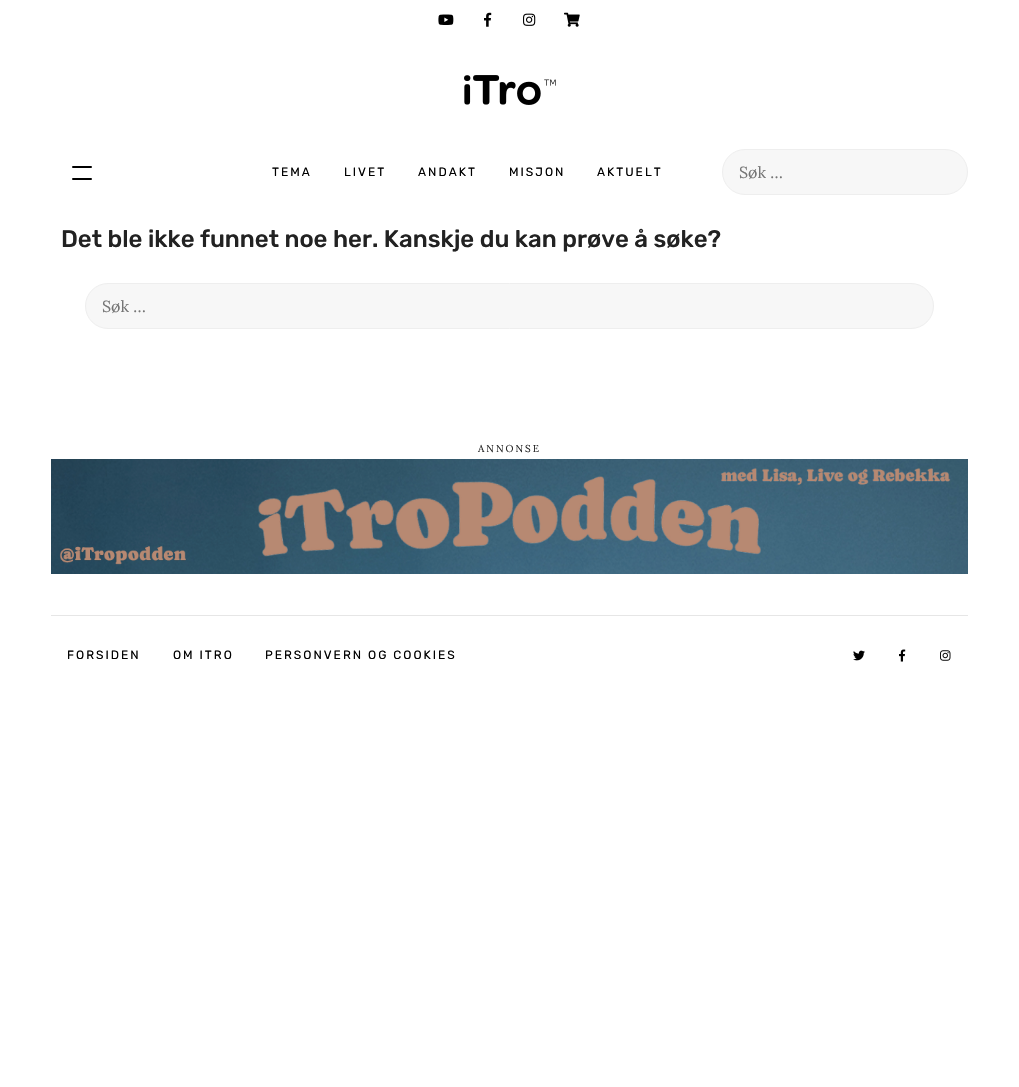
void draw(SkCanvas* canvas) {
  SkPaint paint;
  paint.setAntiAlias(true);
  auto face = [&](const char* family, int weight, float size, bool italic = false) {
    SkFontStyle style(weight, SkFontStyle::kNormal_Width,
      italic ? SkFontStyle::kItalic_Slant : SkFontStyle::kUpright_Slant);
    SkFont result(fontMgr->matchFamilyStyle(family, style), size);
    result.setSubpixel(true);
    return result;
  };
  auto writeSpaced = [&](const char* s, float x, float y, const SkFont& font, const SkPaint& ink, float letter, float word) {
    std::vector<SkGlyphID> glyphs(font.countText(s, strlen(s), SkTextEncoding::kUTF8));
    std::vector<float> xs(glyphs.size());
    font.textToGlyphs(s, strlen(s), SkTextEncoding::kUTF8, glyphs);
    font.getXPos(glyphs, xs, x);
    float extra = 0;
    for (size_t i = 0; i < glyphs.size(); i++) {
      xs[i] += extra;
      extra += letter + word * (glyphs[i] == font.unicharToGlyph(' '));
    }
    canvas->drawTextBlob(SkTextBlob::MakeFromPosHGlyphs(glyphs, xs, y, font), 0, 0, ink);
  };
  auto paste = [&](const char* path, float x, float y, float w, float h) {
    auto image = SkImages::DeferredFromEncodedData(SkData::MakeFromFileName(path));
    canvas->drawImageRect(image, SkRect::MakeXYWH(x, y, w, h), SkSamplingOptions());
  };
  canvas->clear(0xffffffff);
  paste("img/1.png", 438, 14, 16, 11);
  paste("img/2.png", 484, 12, 8, 15);
  paste("img/3.png", 523, 13, 13, 13);
  paste("img/4.png", 564, 12, 16, 15);
  paste("img/5.png", 464, 75, 92, 30);
  paint.setColor(0xff000000);
  canvas->drawRoundRect(SkRect::MakeXYWH(72, 166, 20, 2), 1, 1, paint);
  canvas->drawRoundRect(SkRect::MakeXYWH(72, 178, 20, 2), 1, 1, paint);
  paint.setColor(0xfff7f7f7);
  canvas->drawRoundRect(SkRect::MakeXYWH(722.5f, 149.5f, 245, 45), 22.5f, 22.5f, paint);
  paint.setStroke(true);
  paint.setStrokeWidth(1);
  paint.setColor(0xffeeeeee);
  canvas->drawRoundRect(SkRect::MakeXYWH(722.5f, 149.5f, 245, 45), 22.5f, 22.5f, paint);
  paint.setStroke(false);
  paint.setColor(0xfff7f7f7);
  canvas->drawRoundRect(SkRect::MakeXYWH(85.5f, 283.5f, 848, 45), 22.5f, 22.5f, paint);
  paint.setStroke(true);
  paint.setColor(0xffeeeeee);
  canvas->drawRoundRect(SkRect::MakeXYWH(85.5f, 283.5f, 848, 45), 22.5f, 22.5f, paint);
  paste("img/6.png", 51, 459, 917, 115);
  paint.setStroke(false);
  paint.setColor(0xffe6e6e6);
  canvas->drawRect(SkRect::MakeXYWH(51, 615, 917, 1), paint);
  paste("img/7.png", 853, 650, 12, 11);
  paste("img/8.png", 899, 649, 7, 13);
  paste("img/9.png", 940, 650, 11, 11);
  auto f0 = face("Rubik", 400, 12);
  paint.setColor(0xff000000);
  {
    const struct { const char* s; float x, y; } items[] = {
      {"TEMA", 272, 176},
      {"LIVET", 344, 176},
      {"ANDAKT", 418, 176},
      {"MISJON", 509, 176},
      {"AKTUELT", 597, 176},
    };
    for (auto [s, x, y] : items) {
      writeSpaced(s, x, y, f0, paint, 2, 0);
    }
  }
  auto f1 = face("Lora", 400, 16);
  paint.setColor(0xff757575);
  canvas->drawString("Søk …", 739, 178, f1, paint);
  auto f2 = face("Rubik", 500, 24);
  paint.setColor(0xff222222);
  canvas->drawString("Det ble ikke funnet noe her. Kanskje du kan prøve å søke?", 61, 247, f2, paint);
  paint.setColor(0xff757575);
  canvas->drawString("Søk …", 102, 312, f1, paint);
  auto f3 = face("Lora", 400, 10);
  paint.setColor(0xff222222);
  writeSpaced("ANNONSE", 478, 452, f3, paint, 2, 0);
  paint.setColor(0xff000000);
  {
    const struct { const char* s; float x, y; } items[] = {
      {"FORSIDEN", 67, 659},
      {"OM ITRO", 173, 659},
      {"PERSONVERN OG COOKIES", 265, 659},
    };
    for (auto [s, x, y] : items) {
      writeSpaced(s, x, y, f0, paint, 2, 0);
    }
  }
}
